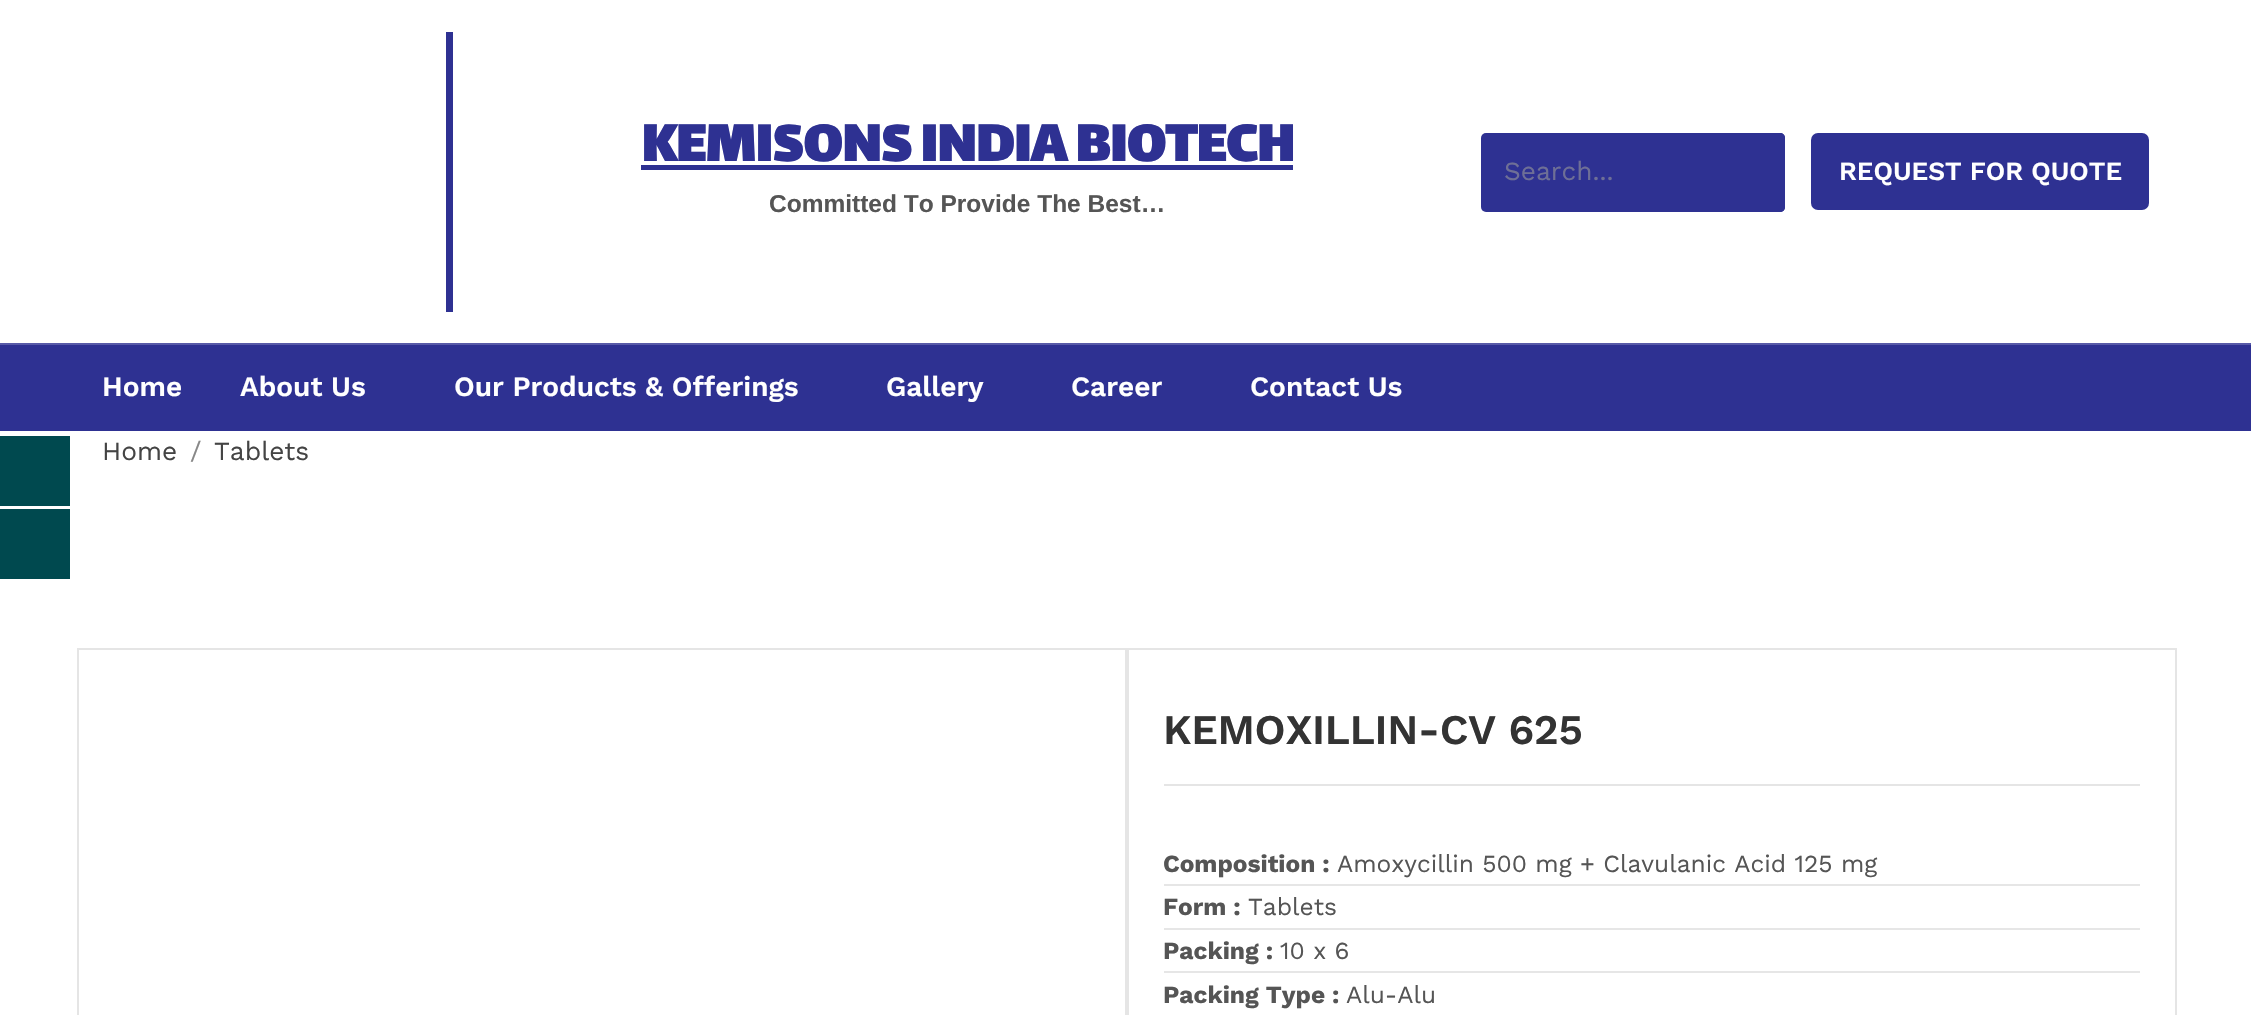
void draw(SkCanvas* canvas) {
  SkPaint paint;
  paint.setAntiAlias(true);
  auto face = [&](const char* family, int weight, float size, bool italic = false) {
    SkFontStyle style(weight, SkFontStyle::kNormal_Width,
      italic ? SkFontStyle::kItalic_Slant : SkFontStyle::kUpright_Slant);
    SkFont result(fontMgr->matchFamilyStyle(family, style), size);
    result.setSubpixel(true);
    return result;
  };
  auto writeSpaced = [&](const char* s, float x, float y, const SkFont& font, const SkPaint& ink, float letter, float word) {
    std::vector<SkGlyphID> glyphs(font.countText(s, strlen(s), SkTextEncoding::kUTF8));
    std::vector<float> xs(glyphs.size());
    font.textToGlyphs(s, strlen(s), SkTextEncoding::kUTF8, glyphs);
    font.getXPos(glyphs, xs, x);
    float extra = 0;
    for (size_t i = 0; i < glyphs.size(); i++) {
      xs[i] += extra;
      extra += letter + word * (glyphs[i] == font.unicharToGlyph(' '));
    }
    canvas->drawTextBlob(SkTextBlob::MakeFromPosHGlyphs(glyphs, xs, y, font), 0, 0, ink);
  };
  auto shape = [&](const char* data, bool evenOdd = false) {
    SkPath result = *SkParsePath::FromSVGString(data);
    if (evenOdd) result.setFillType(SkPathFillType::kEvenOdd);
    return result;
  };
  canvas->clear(0xffffffff);
  {
    const struct { float x, y, w, h; SkColor color; } items[] = {
      {0, 436, 70, 70, 0xff00494f},
      {0, 509, 70, 70, 0xff00494f},
      {446, 32, 7, 280, 0xff2e3192},
      {641, 165, 652, 5, 0xff2e3192},
    };
    for (auto [x, y, w, h, color] : items) {
      paint.setColor(color);
      canvas->drawRect(SkRect::MakeXYWH(x, y, w, h), paint);
    }
  }
  canvas->drawRoundRect(SkRect::MakeXYWH(1481, 133, 304, 79), 5, 5, paint);
  canvas->drawPath(shape("M1715 133H1780C1783 133 1785 135 1785 138V207C1785 210 1783 212 1780 212H1715Z"), paint);
  canvas->drawRoundRect(SkRect::MakeXYWH(1811, 133, 338, 77), 7, 7, paint);
  canvas->drawRect(SkRect::MakeXYWH(0, 345, 2251, 86), paint);
  paint.setColor(0xff585aa8);
  canvas->drawRect(SkRect::MakeXYWH(0, 343, 2251, 2), paint);
  paint.setStroke(true);
  paint.setStrokeWidth(2);
  paint.setColor(0xffe5e5e5);
  canvas->drawRect(SkRect::MakeXYWH(78, 649, 1048, 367), paint);
  canvas->drawRect(SkRect::MakeXYWH(1128, 649, 1048, 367), paint);
  paint.setStroke(false);
  {
    const struct { float x, y, w, h; SkColor color; } items[] = {
      {1164, 784, 976, 2, 0xffe5e5e5},
      {1164, 884, 976, 2, 0xffe6e6e6},
      {1164, 928, 976, 2, 0xffe6e6e6},
      {1164, 971, 976, 2, 0xffe6e6e6},
    };
    for (auto [x, y, w, h, color] : items) {
      paint.setColor(color);
      canvas->drawRect(SkRect::MakeXYWH(x, y, w, h), paint);
    }
  }
  auto f0 = face("Lalezar", 700, 61.25f);
  paint.setColor(0xff2e3192);
  writeSpaced("KEMISONS INDIA BIOTECH", 641, 161, f0, paint, -0.5f, 0);
  auto f1 = face("Liberation Sans", 700, 24.5f);
  paint.setColor(0xff555555);
  canvas->drawString("Committed To Provide The Best…", 769, 212, f1, paint);
  auto f2 = face("Work Sans", 400, 26.25f);
  paint.setColor(0xff6e6f96);
  canvas->drawString("Search...", 1504, 180, f2, paint);
  auto f3 = face("Work Sans", 600, 26.25f);
  paint.setColor(0xffffffff);
  canvas->drawString("REQUEST FOR QUOTE", 1839, 180, f3, paint);
  auto f4 = face("Work Sans", 600, 28);
  {
    const struct { const char* s; float x, y; } items[] = {
      {"Home", 102, 396},
      {"About Us", 240, 396},
      {"Our Products & Offerings", 454, 396},
      {"Gallery", 886, 396},
      {"Career", 1071, 396},
      {"Contact Us", 1250, 396},
    };
    for (auto [s, x, y] : items) {
      canvas->drawString(s, x, y, f4, paint);
    }
  }
  paint.setColor(0xff444444);
  canvas->drawString("Home", 102, 460, f2, paint);
  paint.setColor(0xff888888);
  canvas->drawString("/", 190, 460, f2, paint);
  paint.setColor(0xff444444);
  canvas->drawString("Tablets", 214, 460, f2, paint);
  auto f5 = face("Work Sans", 600, 42);
  paint.setColor(0xff333333);
  writeSpaced("KEMOXILLIN-CV 625", 1163, 744, f5, paint, -0.3f, 0);
  auto f6 = face("Work Sans", 700, 24.5f);
  paint.setColor(0xff555555);
  canvas->drawString("Composition :", 1163, 872, f6, paint);
  auto f7 = face("Work Sans", 400, 24.5f);
  canvas->drawString("Amoxycillin 500 mg + Clavulanic Acid 125 mg", 1337, 872, f7, paint);
  canvas->drawString("Form :", 1163, 915, f6, paint);
  canvas->drawString("Tablets", 1248, 915, f7, paint);
  canvas->drawString("Packing :", 1163, 959, f6, paint);
  canvas->drawString("10 x 6", 1280, 959, f7, paint);
  canvas->drawString("Packing Type :", 1163, 1003, f6, paint);
  canvas->drawString("Alu-Alu", 1346, 1003, f7, paint);
}
